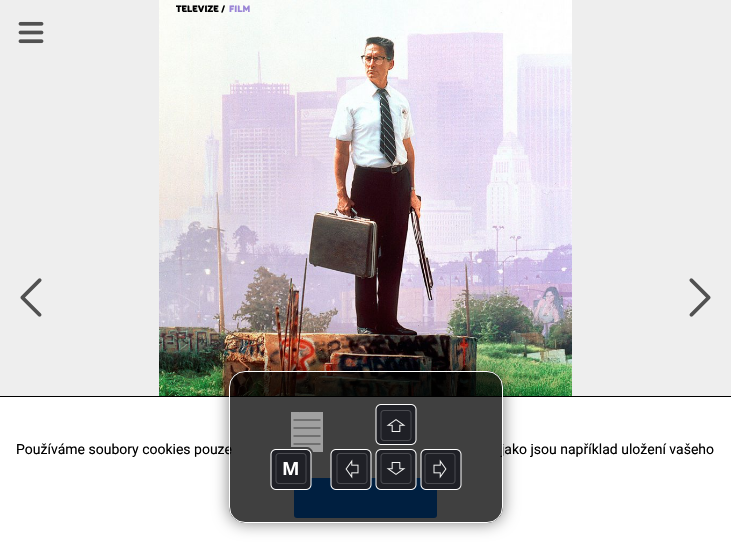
void draw(SkCanvas* canvas) {
  SkPaint paint;
  paint.setAntiAlias(true);
  auto face = [&](const char* family, int weight, float size, bool italic = false) {
    SkFontStyle style(weight, SkFontStyle::kNormal_Width,
      italic ? SkFontStyle::kItalic_Slant : SkFontStyle::kUpright_Slant);
    SkFont result(fontMgr->matchFamilyStyle(family, style), size);
    result.setSubpixel(true);
    return result;
  };
  auto paste = [&](const char* path, float x, float y, float w, float h) {
    auto image = SkImages::DeferredFromEncodedData(SkData::MakeFromFileName(path));
    canvas->drawImageRect(image, SkRect::MakeXYWH(x, y, w, h), SkSamplingOptions());
  };
  auto shape = [&](const char* data, bool evenOdd = false) {
    SkPath result = *SkParsePath::FromSVGString(data);
    if (evenOdd) result.setFillType(SkPathFillType::kEvenOdd);
    return result;
  };
  canvas->clear(0xffeeeeee);
  paste("img/1.png", 159, 0, 138, 138);
  paste("img/2.png", 297, 0, 137, 138);
  paste("img/3.png", 434, 0, 138, 138);
  paste("img/4.png", 159, 138, 138, 137);
  paste("img/5.png", 297, 138, 137, 137);
  paste("img/6.png", 434, 138, 138, 137);
  paste("img/7.png", 159, 275, 138, 121);
  paste("img/8.png", 297, 275, 137, 121);
  paste("img/9.png", 434, 275, 138, 121);
  paste("img/10.png", 18, 21, 26, 23);
  paste("img/11.png", 20, 278, 22, 39);
  paste("img/12.png", 689, 278, 22, 39);
  paint.setColor(0xffffffff);
  canvas->drawRect(SkRect::MakeXYWH(0, 397, 731, 153), paint);
  paint.setColor(0xff000000);
  canvas->drawRect(SkRect::MakeXYWH(0, 396, 731, 1), paint);
  paint.setColor(0xff007aff);
  canvas->drawRoundRect(SkRect::MakeXYWH(294, 478, 143, 40), 3, 3, paint);
  canvas->save();
  canvas->clipPath(shape("M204 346H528V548H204ZM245 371H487C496 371 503 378 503 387V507C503 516 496 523 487 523H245C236 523 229 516 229 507V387C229 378 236 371 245 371Z", true), true);
  paint.setColor(0x80000000);
  paint.setMaskFilter(SkMaskFilter::MakeBlur(kNormal_SkBlurStyle, 8));
  canvas->drawRoundRect(SkRect::MakeXYWH(229, 371, 274, 152), 16, 16, paint);
  paint.setMaskFilter(nullptr);
  canvas->restore();
  auto f0 = face("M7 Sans", 400, 9);
  paint.setColor(0xff000000);
  canvas->drawString("TELEVIZE /", 176, 12, f0, paint);
  paint.setColor(0xff9a85d6);
  canvas->drawString("FILM", 229, 12, f0, paint);
  auto f1 = face("Roboto", 400, 14);
  paint.setColor(0xff000000);
  canvas->drawString("Používáme soubory cookies pouze", 16, 454, f1, paint);
  canvas->drawString("jako jsou například uložení vašeho", 501, 454, f1, paint);
  paint.setColor(0xbf000000);
  canvas->drawRoundRect(SkRect::MakeXYWH(229, 371, 274, 152), 16, 16, paint);
  paste("img/13.png", 270, 404, 192, 86);
  paint.setStroke(true);
  paint.setStrokeWidth(1);
  paint.setColor(0xffffffff);
  canvas->drawRoundRect(SkRect::MakeXYWH(229.5f, 371.5f, 273, 151), 15.5f, 15.5f, paint);
}
